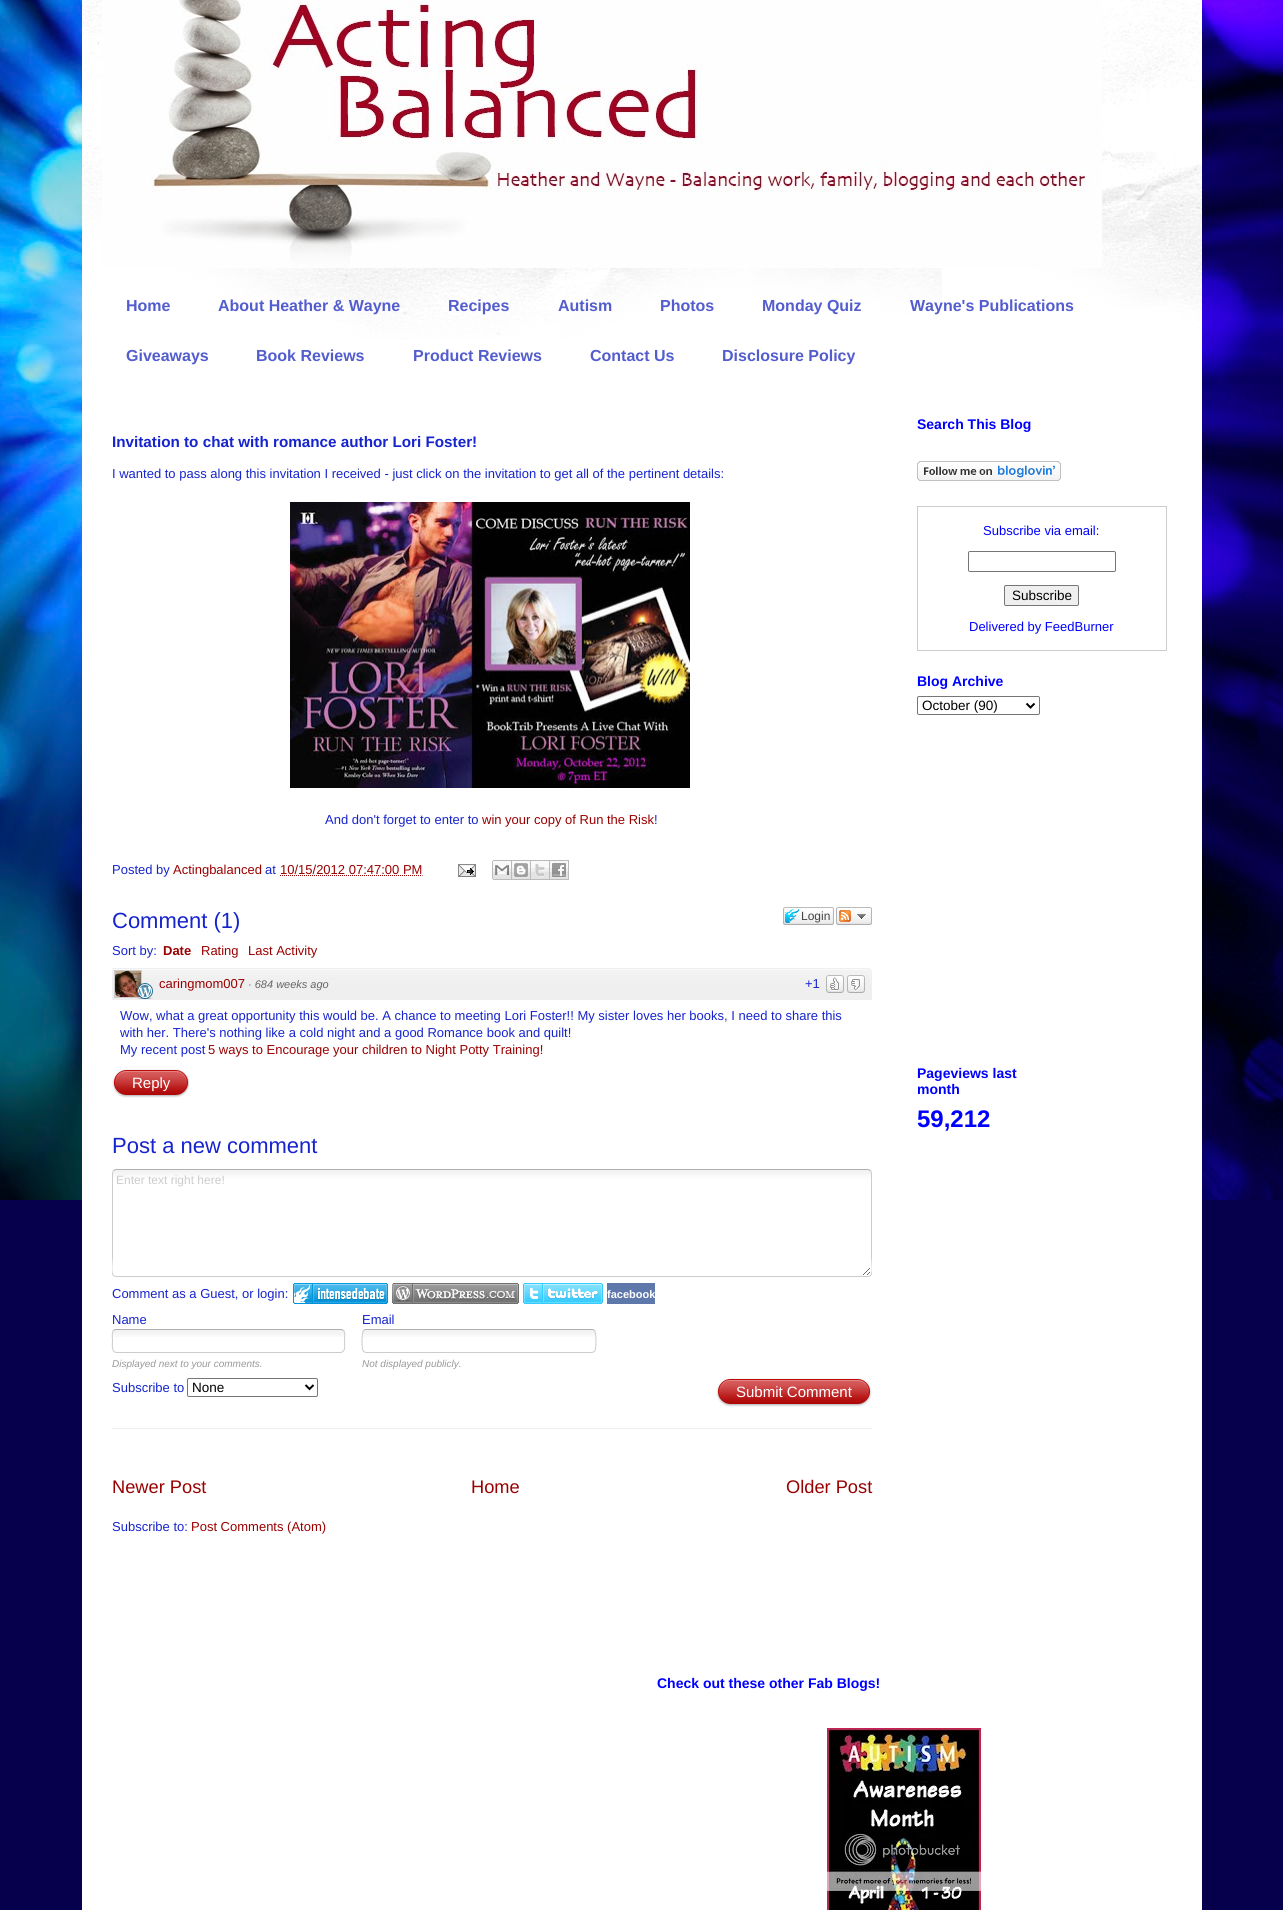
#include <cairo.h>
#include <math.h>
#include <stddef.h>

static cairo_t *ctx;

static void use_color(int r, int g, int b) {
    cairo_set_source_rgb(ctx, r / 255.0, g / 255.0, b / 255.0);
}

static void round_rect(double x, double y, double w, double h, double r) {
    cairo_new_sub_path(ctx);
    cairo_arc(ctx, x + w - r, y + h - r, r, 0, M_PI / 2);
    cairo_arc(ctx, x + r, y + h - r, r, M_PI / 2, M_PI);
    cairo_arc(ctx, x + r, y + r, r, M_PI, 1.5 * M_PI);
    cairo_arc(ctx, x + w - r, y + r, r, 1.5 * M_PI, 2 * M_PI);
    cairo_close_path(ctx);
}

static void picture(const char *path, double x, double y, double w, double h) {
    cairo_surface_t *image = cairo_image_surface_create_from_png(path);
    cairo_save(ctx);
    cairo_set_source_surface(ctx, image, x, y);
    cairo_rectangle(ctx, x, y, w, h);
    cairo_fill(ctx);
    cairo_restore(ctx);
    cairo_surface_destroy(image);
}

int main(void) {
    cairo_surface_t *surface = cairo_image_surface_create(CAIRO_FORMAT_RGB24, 1283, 1910);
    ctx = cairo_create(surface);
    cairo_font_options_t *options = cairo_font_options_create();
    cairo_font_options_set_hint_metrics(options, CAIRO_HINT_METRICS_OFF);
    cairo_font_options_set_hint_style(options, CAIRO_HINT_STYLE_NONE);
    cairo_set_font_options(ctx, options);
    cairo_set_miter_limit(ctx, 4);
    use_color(6, 0, 76);
    cairo_paint(ctx);
    picture("img1.png", 0, 0, 1283, 1200);
    use_color(255, 255, 255);
    cairo_rectangle(ctx, 82, 0, 1120, 1910);
    cairo_fill(ctx);
    picture("img2.png", 82, 0, 1120, 340);
    picture("img3.png", 102, 0, 1000, 268);
    cairo_select_font_face(ctx, "Liberation Sans", CAIRO_FONT_SLANT_NORMAL, CAIRO_FONT_WEIGHT_BOLD);
    cairo_set_font_size(ctx, 16);
    use_color(83, 93, 205);
    cairo_move_to(ctx, 126, 311);
    cairo_show_text(ctx, "Home");
    cairo_move_to(ctx, 218, 311);
    cairo_show_text(ctx, "About Heather & Wayne");
    cairo_move_to(ctx, 448, 311);
    cairo_show_text(ctx, "Recipes");
    cairo_move_to(ctx, 558, 311);
    cairo_show_text(ctx, "Autism");
    cairo_move_to(ctx, 660, 311);
    cairo_show_text(ctx, "Photos");
    cairo_move_to(ctx, 762, 311);
    cairo_show_text(ctx, "Monday Quiz");
    cairo_move_to(ctx, 910, 311);
    cairo_show_text(ctx, "Wayne's Publications");
    cairo_move_to(ctx, 126, 361);
    cairo_show_text(ctx, "Giveaways");
    cairo_move_to(ctx, 256, 361);
    cairo_show_text(ctx, "Book Reviews");
    cairo_move_to(ctx, 413, 361);
    cairo_show_text(ctx, "Product Reviews");
    cairo_move_to(ctx, 590, 361);
    cairo_show_text(ctx, "Contact Us");
    cairo_move_to(ctx, 722, 361);
    cairo_show_text(ctx, "Disclosure Policy");
    cairo_set_font_size(ctx, 15.25);
    use_color(22, 36, 205);
    cairo_move_to(ctx, 112, 447);
    cairo_show_text(ctx, "Invitation to chat with romance author Lori Foster!");
    cairo_select_font_face(ctx, "Liberation Sans", CAIRO_FONT_SLANT_NORMAL, CAIRO_FONT_WEIGHT_NORMAL);
    cairo_set_font_size(ctx, 13);
    cairo_move_to(ctx, 112, 478);
    cairo_show_text(ctx, "I wanted to pass along this invitation I received - just click on the invitation to get all of the pertinent details:");
    picture("img4.png", 290, 502, 400, 286);
    cairo_move_to(ctx, 325, 824);
    cairo_show_text(ctx, "And don't forget to enter to");
    use_color(153, 0, 0);
    cairo_move_to(ctx, 482, 824);
    cairo_show_text(ctx, "win your copy of Run the Risk");
    use_color(22, 36, 205);
    cairo_move_to(ctx, 654, 824);
    cairo_show_text(ctx, "!");
    cairo_move_to(ctx, 112, 874);
    cairo_show_text(ctx, "Posted by");
    use_color(153, 0, 0);
    cairo_move_to(ctx, 173, 874);
    cairo_show_text(ctx, "Actingbalanced");
    use_color(22, 36, 205);
    cairo_move_to(ctx, 265, 874);
    cairo_show_text(ctx, "at");
    use_color(153, 0, 0);
    cairo_move_to(ctx, 280, 874);
    cairo_show_text(ctx, "10/15/2012 07:47:00 PM");
    cairo_new_path(ctx);
    cairo_move_to(ctx, 280, 875.5);
    cairo_line_to(ctx, 422.5, 875.5);
    cairo_set_line_width(ctx, 1);
    cairo_set_dash(ctx, (double[]){1, 1}, 2, 0);
    cairo_stroke(ctx);
    picture("img5.png", 458, 864, 18, 13);
    picture("img6.png", 492, 860, 20, 20);
    picture("img7.png", 512, 860, 19, 20);
    picture("img8.png", 531, 860, 19, 20);
    picture("img9.png", 550, 860, 19, 20);
    cairo_set_font_size(ctx, 22);
    use_color(22, 36, 205);
    cairo_move_to(ctx, 112, 928);
    cairo_show_text(ctx, "Comment (1)");
    picture("img10.png", 783, 907, 48, 18);
    cairo_set_font_size(ctx, 12);
    use_color(68, 68, 68);
    cairo_move_to(ctx, 801, 920);
    cairo_show_text(ctx, "Login");
    picture("img11.png", 831, 907, 3, 18);
    picture("img12.png", 836, 907, 36, 18);
    cairo_set_font_size(ctx, 13);
    use_color(22, 36, 205);
    cairo_move_to(ctx, 112, 955);
    cairo_show_text(ctx, "Sort by:");
    cairo_select_font_face(ctx, "Liberation Sans", CAIRO_FONT_SLANT_NORMAL, CAIRO_FONT_WEIGHT_BOLD);
    use_color(153, 0, 0);
    cairo_move_to(ctx, 163, 955);
    cairo_show_text(ctx, "Date");
    cairo_select_font_face(ctx, "Liberation Sans", CAIRO_FONT_SLANT_NORMAL, CAIRO_FONT_WEIGHT_NORMAL);
    cairo_move_to(ctx, 201, 955);
    cairo_show_text(ctx, "Rating");
    cairo_move_to(ctx, 248, 955);
    cairo_show_text(ctx, "Last Activity");
    picture("img13.png", 112, 968, 760, 32);
    use_color(204, 204, 204);
    cairo_rectangle(ctx, 114, 970, 28, 28);
    cairo_fill(ctx);
    picture("img14.png", 115, 971, 26, 26);
    picture("img15.png", 137, 983, 16, 16);
    use_color(153, 0, 0);
    cairo_move_to(ctx, 159, 988);
    cairo_show_text(ctx, "caringmom007");
    cairo_select_font_face(ctx, "Liberation Sans", CAIRO_FONT_SLANT_ITALIC, CAIRO_FONT_WEIGHT_NORMAL);
    cairo_set_font_size(ctx, 11);
    use_color(102, 102, 102);
    cairo_move_to(ctx, 248, 988);
    cairo_show_text(ctx, "· 684 weeks ago");
    cairo_select_font_face(ctx, "Liberation Sans", CAIRO_FONT_SLANT_NORMAL, CAIRO_FONT_WEIGHT_NORMAL);
    cairo_set_font_size(ctx, 13);
    use_color(22, 36, 205);
    cairo_move_to(ctx, 805, 988);
    cairo_show_text(ctx, "+1");
    picture("img16.png", 826, 975, 18, 18);
    picture("img17.png", 847, 975, 18, 18);
    cairo_move_to(ctx, 120, 1020);
    cairo_show_text(ctx, "Wow, what a great opportunity this would be. A chance to meeting Lori Foster!! My sister loves her books, I need to share this");
    cairo_move_to(ctx, 120, 1037);
    cairo_show_text(ctx, "with her. There's nothing like a cold night and a good Romance book and quilt!");
    cairo_move_to(ctx, 120, 1054);
    cairo_show_text(ctx, "My recent post");
    use_color(153, 0, 0);
    cairo_move_to(ctx, 208, 1054);
    cairo_show_text(ctx, "5 ways to Encourage your children to Night Potty Training!");
    picture("img18.png", 112, 1069, 20, 29);
    picture("img19.png", 132, 1069, 58, 29);
    cairo_set_font_size(ctx, 15);
    use_color(255, 255, 255);
    cairo_move_to(ctx, 132, 1088);
    cairo_show_text(ctx, "Reply");
    cairo_set_font_size(ctx, 22);
    use_color(22, 36, 205);
    cairo_move_to(ctx, 112, 1153);
    cairo_show_text(ctx, "Post a new comment");
    picture("img20.png", 113, 1170, 759, 105);
    cairo_new_path(ctx);
    cairo_move_to(ctx, 113.5, 1170.5);
    cairo_line_to(ctx, 116, 1169.5);
    cairo_line_to(ctx, 868, 1169.5);
    cairo_line_to(ctx, 870.5, 1170.5);
    use_color(176, 176, 176);
    cairo_set_dash(ctx, NULL, 0, 0);
    cairo_stroke(ctx);
    cairo_save(ctx);
    cairo_rectangle(ctx, 112, 1169, 760, 112);
    cairo_clip(ctx);
    cairo_new_path(ctx);
    cairo_move_to(ctx, 870.5, 1170.5);
    cairo_line_to(ctx, 871.5, 1173);
    cairo_line_to(ctx, 871.5, 1256.5);
    cairo_curve_to(ctx, 871.5, 1263, 874.5, 1276.5, 868, 1276.5);
    cairo_line_to(ctx, 116, 1276.5);
    cairo_curve_to(ctx, 109.5, 1276.5, 112.5, 1263, 112.5, 1256.5);
    cairo_line_to(ctx, 112.5, 1173);
    cairo_line_to(ctx, 113.5, 1170.5);
    use_color(204, 204, 204);
    cairo_stroke(ctx);
    cairo_restore(ctx);
    cairo_set_font_size(ctx, 12);
    use_color(204, 204, 204);
    cairo_move_to(ctx, 116, 1184);
    cairo_show_text(ctx, "Enter text right here!");
    cairo_set_font_size(ctx, 13);
    use_color(22, 36, 205);
    cairo_move_to(ctx, 112, 1298);
    cairo_show_text(ctx, "Comment as a Guest, or login:");
    picture("img21.png", 293, 1283, 95, 21);
    picture("img22.png", 392, 1283, 127, 21);
    picture("img23.png", 523, 1283, 80, 21);
    use_color(95, 120, 171);
    cairo_rectangle(ctx, 607, 1283, 48, 21);
    cairo_fill(ctx);
    cairo_select_font_face(ctx, "Liberation Sans", CAIRO_FONT_SLANT_NORMAL, CAIRO_FONT_WEIGHT_BOLD);
    cairo_set_font_size(ctx, 11);
    use_color(255, 255, 255);
    cairo_move_to(ctx, 607, 1298);
    cairo_show_text(ctx, "facebook");
    cairo_select_font_face(ctx, "Liberation Sans", CAIRO_FONT_SLANT_NORMAL, CAIRO_FONT_WEIGHT_NORMAL);
    cairo_set_font_size(ctx, 13);
    use_color(22, 36, 205);
    cairo_move_to(ctx, 112, 1324);
    cairo_show_text(ctx, "Name");
    cairo_move_to(ctx, 362, 1324);
    cairo_show_text(ctx, "Email");
    picture("img24.png", 113, 1330, 232, 7);
    cairo_new_path(ctx);
    cairo_move_to(ctx, 113.5, 1330.5);
    cairo_curve_to(ctx, 114, 1330, 115, 1329.5, 116, 1329.5);
    cairo_line_to(ctx, 341, 1329.5);
    cairo_curve_to(ctx, 342, 1329.5, 343, 1330, 343.5, 1330.5);
    use_color(176, 176, 176);
    cairo_stroke(ctx);
    cairo_new_path(ctx);
    cairo_move_to(ctx, 343.5, 1330.5);
    cairo_curve_to(ctx, 345.5, 1332.5, 344.5, 1338.5, 344.5, 1341);
    cairo_curve_to(ctx, 344.5, 1343.5, 345.5, 1349.5, 343, 1351.5);
    cairo_line_to(ctx, 341, 1352.5);
    cairo_line_to(ctx, 116, 1352.5);
    cairo_line_to(ctx, 114, 1351.5);
    cairo_curve_to(ctx, 111.5, 1349.5, 112.5, 1343.5, 112.5, 1341);
    cairo_curve_to(ctx, 112.5, 1338.5, 111.5, 1332.5, 113.5, 1330.5);
    use_color(204, 204, 204);
    cairo_stroke(ctx);
    cairo_select_font_face(ctx, "Liberation Sans", CAIRO_FONT_SLANT_ITALIC, CAIRO_FONT_WEIGHT_NORMAL);
    cairo_set_font_size(ctx, 10);
    use_color(153, 153, 153);
    cairo_move_to(ctx, 112, 1367);
    cairo_show_text(ctx, "Displayed next to your comments.");
    picture("img25.png", 363, 1330, 233, 7);
    cairo_new_path(ctx);
    cairo_move_to(ctx, 363.5, 1330.5);
    cairo_curve_to(ctx, 364, 1330, 365, 1329.5, 366, 1329.5);
    cairo_line_to(ctx, 592, 1329.5);
    cairo_curve_to(ctx, 593, 1329.5, 594, 1330, 594.5, 1330.5);
    use_color(176, 176, 176);
    cairo_stroke(ctx);
    cairo_new_path(ctx);
    cairo_move_to(ctx, 594.5, 1330.5);
    cairo_curve_to(ctx, 596.5, 1332.5, 596.5, 1349.5, 594.5, 1351.5);
    cairo_line_to(ctx, 592, 1352.5);
    cairo_line_to(ctx, 366, 1352.5);
    cairo_line_to(ctx, 363.5, 1351.5);
    cairo_curve_to(ctx, 361.5, 1349.5, 361.5, 1332.5, 363.5, 1330.5);
    use_color(204, 204, 204);
    cairo_stroke(ctx);
    use_color(153, 153, 153);
    cairo_move_to(ctx, 362, 1367);
    cairo_show_text(ctx, "Not displayed publicly.");
    cairo_select_font_face(ctx, "Liberation Sans", CAIRO_FONT_SLANT_NORMAL, CAIRO_FONT_WEIGHT_NORMAL);
    cairo_set_font_size(ctx, 13);
    use_color(22, 36, 205);
    cairo_move_to(ctx, 112, 1392);
    cairo_show_text(ctx, "Subscribe to");
    round_rect(187.5, 1378.5, 130, 18, 1.5);
    use_color(118, 118, 118);
    cairo_stroke(ctx);
    cairo_new_path(ctx);
    cairo_move_to(ctx, 305.5, 1385);
    cairo_line_to(ctx, 309.5, 1389);
    cairo_line_to(ctx, 313.5, 1385);
    use_color(0, 0, 0);
    cairo_set_line_width(ctx, 2);
    cairo_stroke(ctx);
    cairo_set_font_size(ctx, 13.5);
    cairo_move_to(ctx, 192, 1392);
    cairo_show_text(ctx, "None");
    picture("img18.png", 716, 1378, 20, 29);
    picture("img26.png", 736, 1378, 136, 29);
    cairo_set_font_size(ctx, 15);
    use_color(255, 255, 255);
    cairo_move_to(ctx, 736, 1397);
    cairo_show_text(ctx, "Submit Comment");
    use_color(238, 238, 238);
    cairo_rectangle(ctx, 112, 1428, 760, 1);
    cairo_fill(ctx);
    cairo_set_font_size(ctx, 18.25);
    use_color(153, 0, 0);
    cairo_move_to(ctx, 112, 1493);
    cairo_show_text(ctx, "Newer Post");
    cairo_move_to(ctx, 471, 1493);
    cairo_show_text(ctx, "Home");
    cairo_move_to(ctx, 786, 1493);
    cairo_show_text(ctx, "Older Post");
    cairo_set_font_size(ctx, 13);
    use_color(22, 36, 205);
    cairo_move_to(ctx, 112, 1531);
    cairo_show_text(ctx, "Subscribe to:");
    use_color(153, 0, 0);
    cairo_move_to(ctx, 191, 1531);
    cairo_show_text(ctx, "Post Comments (Atom)");
    cairo_select_font_face(ctx, "Liberation Sans", CAIRO_FONT_SLANT_NORMAL, CAIRO_FONT_WEIGHT_BOLD);
    cairo_set_font_size(ctx, 14);
    use_color(0, 0, 255);
    cairo_move_to(ctx, 917, 429);
    cairo_show_text(ctx, "Search This Blog");
    picture("img27.png", 917, 461, 144, 20);
    cairo_rectangle(ctx, 917.5, 506.5, 249, 144);
    use_color(204, 204, 204);
    cairo_set_line_width(ctx, 1);
    cairo_stroke(ctx);
    cairo_select_font_face(ctx, "Liberation Sans", CAIRO_FONT_SLANT_NORMAL, CAIRO_FONT_WEIGHT_NORMAL);
    cairo_set_font_size(ctx, 13);
    use_color(0, 0, 255);
    cairo_move_to(ctx, 983, 535);
    cairo_show_text(ctx, "Subscribe via email:");
    round_rect(968.5, 551.5, 147, 20, 1.5);
    use_color(118, 118, 118);
    cairo_stroke(ctx);
    use_color(239, 239, 239);
    round_rect(1004.5, 585.5, 74, 20, 1.5);
    cairo_fill_preserve(ctx);
    use_color(118, 118, 118);
    cairo_stroke(ctx);
    cairo_set_font_size(ctx, 13.5);
    use_color(0, 0, 0);
    cairo_move_to(ctx, 1012, 600);
    cairo_show_text(ctx, "Subscribe");
    cairo_set_font_size(ctx, 13);
    use_color(0, 0, 255);
    cairo_move_to(ctx, 969, 631);
    cairo_show_text(ctx, "Delivered by FeedBurner");
    cairo_select_font_face(ctx, "Liberation Sans", CAIRO_FONT_SLANT_NORMAL, CAIRO_FONT_WEIGHT_BOLD);
    cairo_set_font_size(ctx, 14);
    cairo_move_to(ctx, 917, 686);
    cairo_show_text(ctx, "Blog Archive");
    round_rect(917.5, 696.5, 122, 18, 1.5);
    use_color(118, 118, 118);
    cairo_stroke(ctx);
    cairo_new_path(ctx);
    cairo_move_to(ctx, 1026.5, 703.5);
    cairo_line_to(ctx, 1030.5, 707.5);
    cairo_line_to(ctx, 1034.5, 703.5);
    use_color(0, 0, 0);
    cairo_set_line_width(ctx, 2);
    cairo_stroke(ctx);
    cairo_select_font_face(ctx, "Liberation Sans", CAIRO_FONT_SLANT_NORMAL, CAIRO_FONT_WEIGHT_NORMAL);
    cairo_set_font_size(ctx, 13.5);
    cairo_move_to(ctx, 922, 710);
    cairo_show_text(ctx, "October (90)");
    cairo_select_font_face(ctx, "Liberation Sans", CAIRO_FONT_SLANT_NORMAL, CAIRO_FONT_WEIGHT_BOLD);
    cairo_set_font_size(ctx, 14);
    use_color(0, 0, 255);
    cairo_move_to(ctx, 917, 1078);
    cairo_show_text(ctx, "Pageviews last");
    cairo_move_to(ctx, 917, 1094);
    cairo_show_text(ctx, "month");
    cairo_set_font_size(ctx, 24);
    cairo_move_to(ctx, 917, 1127);
    cairo_show_text(ctx, "59,212");
    cairo_set_font_size(ctx, 14);
    cairo_move_to(ctx, 657, 1688);
    cairo_show_text(ctx, "Check out these other Fab Blogs!");
    picture("img28.png", 827, 1728, 154, 182);
    cairo_surface_write_to_png(surface, "result.png");
    cairo_font_options_destroy(options);
    cairo_destroy(ctx);
    cairo_surface_destroy(surface);
    return 0;
}
